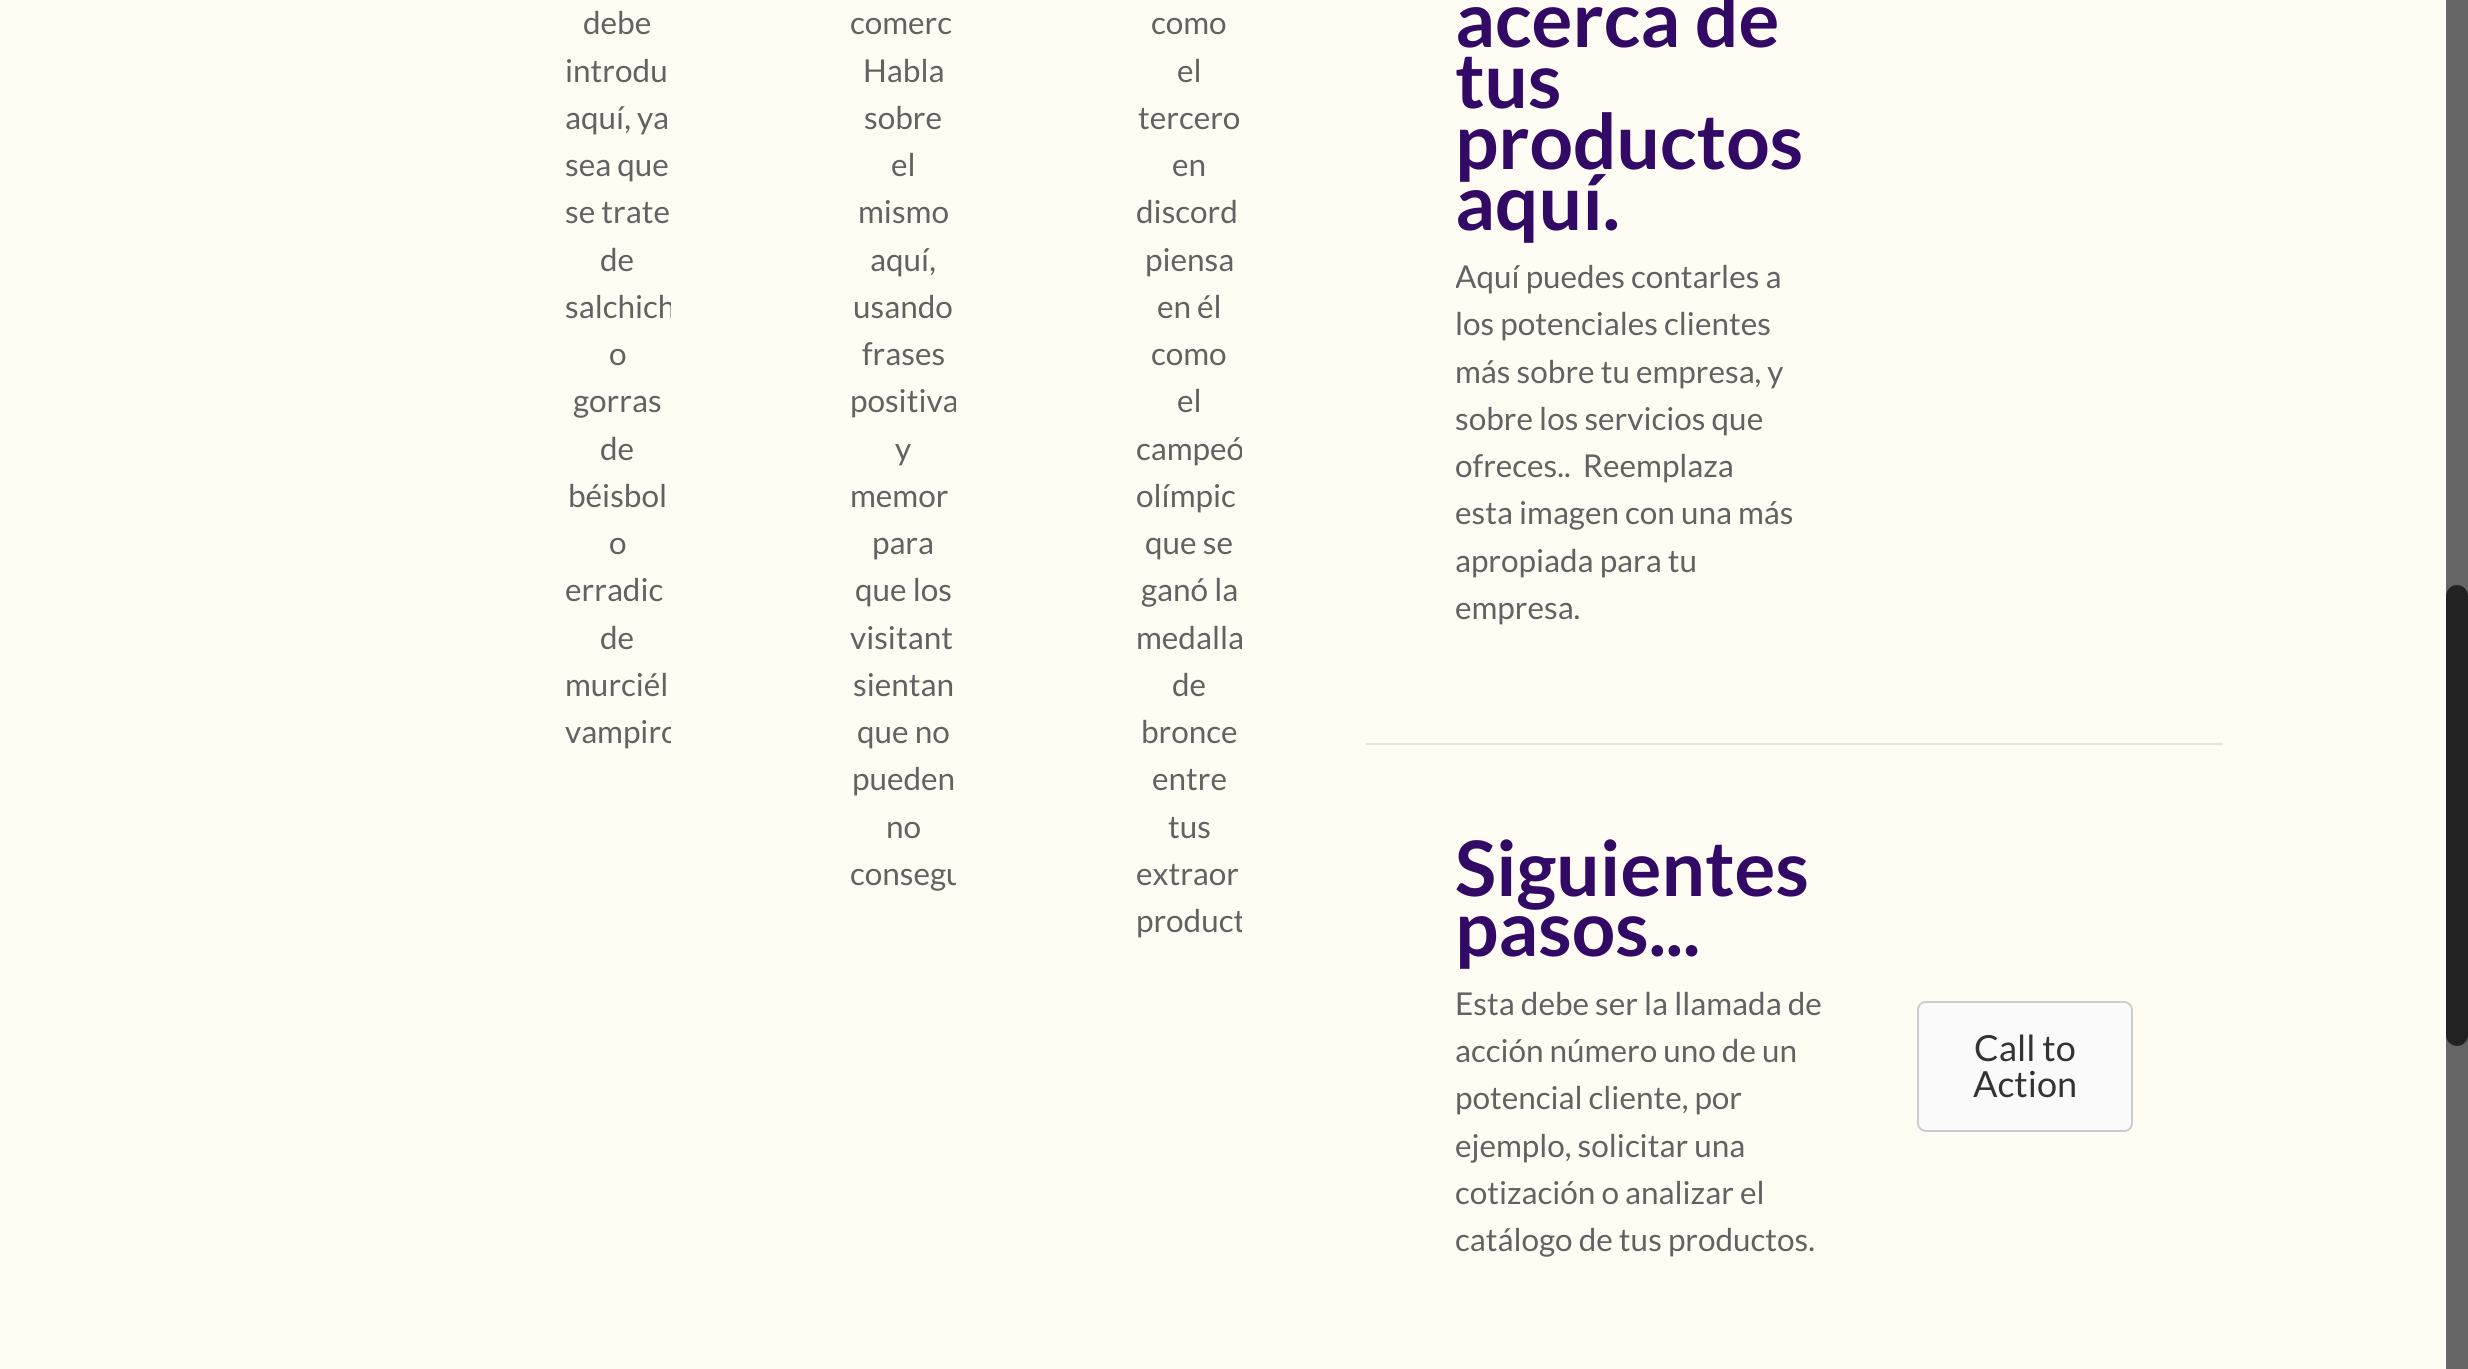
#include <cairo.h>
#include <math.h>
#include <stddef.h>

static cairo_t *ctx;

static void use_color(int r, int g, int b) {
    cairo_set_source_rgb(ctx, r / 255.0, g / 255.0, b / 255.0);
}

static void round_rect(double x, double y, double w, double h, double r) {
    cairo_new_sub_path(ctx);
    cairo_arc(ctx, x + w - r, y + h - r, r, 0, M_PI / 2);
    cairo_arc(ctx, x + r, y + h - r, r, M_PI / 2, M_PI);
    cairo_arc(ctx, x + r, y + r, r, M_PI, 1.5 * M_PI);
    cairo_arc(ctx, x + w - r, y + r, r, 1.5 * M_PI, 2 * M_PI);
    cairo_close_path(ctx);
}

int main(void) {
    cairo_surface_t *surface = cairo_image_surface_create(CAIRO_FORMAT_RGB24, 2468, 1369);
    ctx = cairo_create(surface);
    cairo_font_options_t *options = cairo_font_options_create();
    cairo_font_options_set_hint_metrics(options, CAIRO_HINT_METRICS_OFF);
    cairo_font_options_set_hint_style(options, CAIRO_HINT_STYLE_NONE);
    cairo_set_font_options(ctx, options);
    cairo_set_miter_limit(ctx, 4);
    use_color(255, 253, 243);
    cairo_paint(ctx);
    cairo_select_font_face(ctx, "Lato", CAIRO_FONT_SLANT_NORMAL, CAIRO_FONT_WEIGHT_NORMAL);
    cairo_set_font_size(ctx, 31.5);
    use_color(98, 98, 98);
    cairo_move_to(ctx, 583, 34);
    cairo_show_text(ctx, "debe");
    cairo_move_to(ctx, 565, 82);
    cairo_show_text(ctx, "introdu");
    cairo_move_to(ctx, 565, 129);
    cairo_show_text(ctx, "aquí, ya");
    cairo_move_to(ctx, 565, 176);
    cairo_show_text(ctx, "sea que");
    cairo_move_to(ctx, 565, 223);
    cairo_show_text(ctx, "se trate");
    cairo_move_to(ctx, 600, 271);
    cairo_show_text(ctx, "de");
    cairo_save(ctx);
    cairo_rectangle(ctx, 565, 0, 106, 776);
    cairo_clip(ctx);
    cairo_move_to(ctx, 565, 318);
    cairo_show_text(ctx, "salchich");
    cairo_restore(ctx);
    cairo_move_to(ctx, 609, 365);
    cairo_show_text(ctx, "o");
    cairo_move_to(ctx, 573, 412);
    cairo_show_text(ctx, "gorras");
    cairo_move_to(ctx, 600, 460);
    cairo_show_text(ctx, "de");
    cairo_move_to(ctx, 568, 507);
    cairo_show_text(ctx, "béisbol");
    cairo_move_to(ctx, 609, 554);
    cairo_show_text(ctx, "o");
    cairo_move_to(ctx, 565, 601);
    cairo_show_text(ctx, "erradic");
    cairo_move_to(ctx, 600, 649);
    cairo_show_text(ctx, "de");
    cairo_move_to(ctx, 565, 696);
    cairo_show_text(ctx, "murciél");
    cairo_save(ctx);
    cairo_rectangle(ctx, 565, 0, 106, 776);
    cairo_clip(ctx);
    cairo_move_to(ctx, 565, 743);
    cairo_show_text(ctx, "vampiro");
    cairo_restore(ctx);
    cairo_move_to(ctx, 850, 34);
    cairo_show_text(ctx, "comerc");
    cairo_move_to(ctx, 863, 82);
    cairo_show_text(ctx, "Habla");
    cairo_move_to(ctx, 864, 129);
    cairo_show_text(ctx, "sobre");
    cairo_move_to(ctx, 891, 176);
    cairo_show_text(ctx, "el");
    cairo_move_to(ctx, 858, 223);
    cairo_show_text(ctx, "mismo");
    cairo_move_to(ctx, 870, 271);
    cairo_show_text(ctx, "aquí,");
    cairo_move_to(ctx, 853, 318);
    cairo_show_text(ctx, "usando");
    cairo_move_to(ctx, 862, 365);
    cairo_show_text(ctx, "frases");
    cairo_save(ctx);
    cairo_rectangle(ctx, 851, 0, 105, 918);
    cairo_clip(ctx);
    cairo_move_to(ctx, 850, 412);
    cairo_show_text(ctx, "positiva");
    cairo_restore(ctx);
    cairo_move_to(ctx, 895, 460);
    cairo_show_text(ctx, "y");
    cairo_move_to(ctx, 850, 507);
    cairo_show_text(ctx, "memor");
    cairo_move_to(ctx, 872, 554);
    cairo_show_text(ctx, "para");
    cairo_move_to(ctx, 855, 601);
    cairo_show_text(ctx, "que los");
    cairo_move_to(ctx, 850, 649);
    cairo_show_text(ctx, "visitant");
    cairo_move_to(ctx, 853, 696);
    cairo_show_text(ctx, "sientan");
    cairo_move_to(ctx, 857, 743);
    cairo_show_text(ctx, "que no");
    cairo_move_to(ctx, 852, 790);
    cairo_show_text(ctx, "pueden");
    cairo_move_to(ctx, 886, 838);
    cairo_show_text(ctx, "no");
    cairo_save(ctx);
    cairo_rectangle(ctx, 851, 0, 105, 918);
    cairo_clip(ctx);
    cairo_move_to(ctx, 850, 885);
    cairo_show_text(ctx, "consegu");
    cairo_restore(ctx);
    cairo_move_to(ctx, 1151, 34);
    cairo_show_text(ctx, "como");
    cairo_move_to(ctx, 1177, 82);
    cairo_show_text(ctx, "el");
    cairo_move_to(ctx, 1138, 129);
    cairo_show_text(ctx, "tercero");
    cairo_move_to(ctx, 1172, 176);
    cairo_show_text(ctx, "en");
    cairo_move_to(ctx, 1136, 223);
    cairo_show_text(ctx, "discord");
    cairo_move_to(ctx, 1145, 271);
    cairo_show_text(ctx, "piensa");
    cairo_move_to(ctx, 1157, 318);
    cairo_show_text(ctx, "en él");
    cairo_move_to(ctx, 1151, 365);
    cairo_show_text(ctx, "como");
    cairo_move_to(ctx, 1177, 412);
    cairo_show_text(ctx, "el");
    cairo_save(ctx);
    cairo_rectangle(ctx, 1136, 0, 106, 965);
    cairo_clip(ctx);
    cairo_move_to(ctx, 1136, 460);
    cairo_show_text(ctx, "campeó");
    cairo_restore(ctx);
    cairo_move_to(ctx, 1136, 507);
    cairo_show_text(ctx, "olímpic");
    cairo_move_to(ctx, 1145, 554);
    cairo_show_text(ctx, "que se");
    cairo_move_to(ctx, 1141, 601);
    cairo_show_text(ctx, "ganó la");
    cairo_save(ctx);
    cairo_rectangle(ctx, 1136, 0, 106, 965);
    cairo_clip(ctx);
    cairo_move_to(ctx, 1136, 649);
    cairo_show_text(ctx, "medalla");
    cairo_restore(ctx);
    cairo_move_to(ctx, 1172, 696);
    cairo_show_text(ctx, "de");
    cairo_move_to(ctx, 1141, 743);
    cairo_show_text(ctx, "bronce");
    cairo_move_to(ctx, 1152, 790);
    cairo_show_text(ctx, "entre");
    cairo_move_to(ctx, 1168, 838);
    cairo_show_text(ctx, "tus");
    cairo_move_to(ctx, 1136, 885);
    cairo_show_text(ctx, "extraor");
    cairo_save(ctx);
    cairo_rectangle(ctx, 1136, 0, 106, 965);
    cairo_clip(ctx);
    cairo_move_to(ctx, 1136, 932);
    cairo_show_text(ctx, "product");
    cairo_restore(ctx);
    cairo_select_font_face(ctx, "Lato", CAIRO_FONT_SLANT_NORMAL, CAIRO_FONT_WEIGHT_BOLD);
    cairo_set_font_size(ctx, 76.5);
    use_color(50, 9, 101);
    cairo_move_to(ctx, 1455, 47);
    cairo_show_text(ctx, "acerca de");
    cairo_move_to(ctx, 1455, 108);
    cairo_show_text(ctx, "tus");
    cairo_move_to(ctx, 1455, 169);
    cairo_show_text(ctx, "productos");
    cairo_move_to(ctx, 1455, 230);
    cairo_show_text(ctx, "aquí.");
    cairo_save(ctx);
    cairo_rectangle(ctx, 1456, 0, 677, 653);
    cairo_clip(ctx);
    cairo_select_font_face(ctx, "Lato", CAIRO_FONT_SLANT_NORMAL, CAIRO_FONT_WEIGHT_NORMAL);
    cairo_set_font_size(ctx, 31.5);
    use_color(98, 98, 98);
    cairo_move_to(ctx, 1455, 288);
    cairo_show_text(ctx, "Aquí puedes contarles a");
    cairo_restore(ctx);
    cairo_select_font_face(ctx, "Lato", CAIRO_FONT_SLANT_NORMAL, CAIRO_FONT_WEIGHT_NORMAL);
    cairo_set_font_size(ctx, 31.5);
    use_color(98, 98, 98);
    cairo_move_to(ctx, 1455, 335);
    cairo_show_text(ctx, "los potenciales clientes");
    cairo_move_to(ctx, 1455, 383);
    cairo_show_text(ctx, "más sobre tu empresa, y");
    cairo_move_to(ctx, 1455, 430);
    cairo_show_text(ctx, "sobre los servicios que");
    cairo_save(ctx);
    cairo_rectangle(ctx, 1456, 0, 677, 653);
    cairo_clip(ctx);
    cairo_move_to(ctx, 1455, 477);
    cairo_show_text(ctx, "ofreces..  Reemplaza");
    cairo_move_to(ctx, 1455, 524);
    cairo_show_text(ctx, "esta imagen con una más");
    cairo_restore(ctx);
    cairo_move_to(ctx, 1455, 572);
    cairo_show_text(ctx, "apropiada para tu");
    cairo_save(ctx);
    cairo_rectangle(ctx, 1456, 0, 677, 653);
    cairo_clip(ctx);
    cairo_move_to(ctx, 1455, 619);
    cairo_show_text(ctx, "empresa.");
    cairo_restore(ctx);
    use_color(230, 228, 219);
    cairo_rectangle(ctx, 1366, 743, 857, 2);
    cairo_fill(ctx);
    cairo_select_font_face(ctx, "Lato", CAIRO_FONT_SLANT_NORMAL, CAIRO_FONT_WEIGHT_BOLD);
    cairo_set_font_size(ctx, 76.5);
    use_color(50, 9, 101);
    cairo_move_to(ctx, 1455, 896);
    cairo_show_text(ctx, "Siguientes");
    cairo_move_to(ctx, 1455, 956);
    cairo_show_text(ctx, "pasos...");
    cairo_select_font_face(ctx, "Lato", CAIRO_FONT_SLANT_NORMAL, CAIRO_FONT_WEIGHT_NORMAL);
    cairo_set_font_size(ctx, 31.5);
    use_color(98, 98, 98);
    cairo_move_to(ctx, 1455, 1015);
    cairo_show_text(ctx, "Esta debe ser la llamada de");
    cairo_move_to(ctx, 1455, 1062);
    cairo_show_text(ctx, "acción número uno de un");
    cairo_move_to(ctx, 1455, 1109);
    cairo_show_text(ctx, "potencial cliente, por");
    cairo_move_to(ctx, 1455, 1157);
    cairo_show_text(ctx, "ejemplo, solicitar una");
    cairo_move_to(ctx, 1455, 1204);
    cairo_show_text(ctx, "cotización o analizar el");
    cairo_move_to(ctx, 1455, 1251);
    cairo_show_text(ctx, "catálogo de tus productos.");
    use_color(250, 250, 250);
    round_rect(1918, 1002, 214, 129, 8);
    cairo_fill_preserve(ctx);
    use_color(204, 204, 204);
    cairo_stroke(ctx);
    cairo_set_font_size(ctx, 36);
    use_color(51, 51, 51);
    cairo_move_to(ctx, 1974, 1061);
    cairo_show_text(ctx, "Call to");
    cairo_move_to(ctx, 1973, 1097);
    cairo_show_text(ctx, "Action");
    use_color(102, 102, 102);
    cairo_rectangle(ctx, 2446, 0, 22, 1369);
    cairo_fill(ctx);
    use_color(34, 34, 34);
    round_rect(2446, 585, 22, 461, 11);
    cairo_fill(ctx);
    cairo_surface_write_to_png(surface, "result.png");
    cairo_font_options_destroy(options);
    cairo_destroy(ctx);
    cairo_surface_destroy(surface);
    return 0;
}
